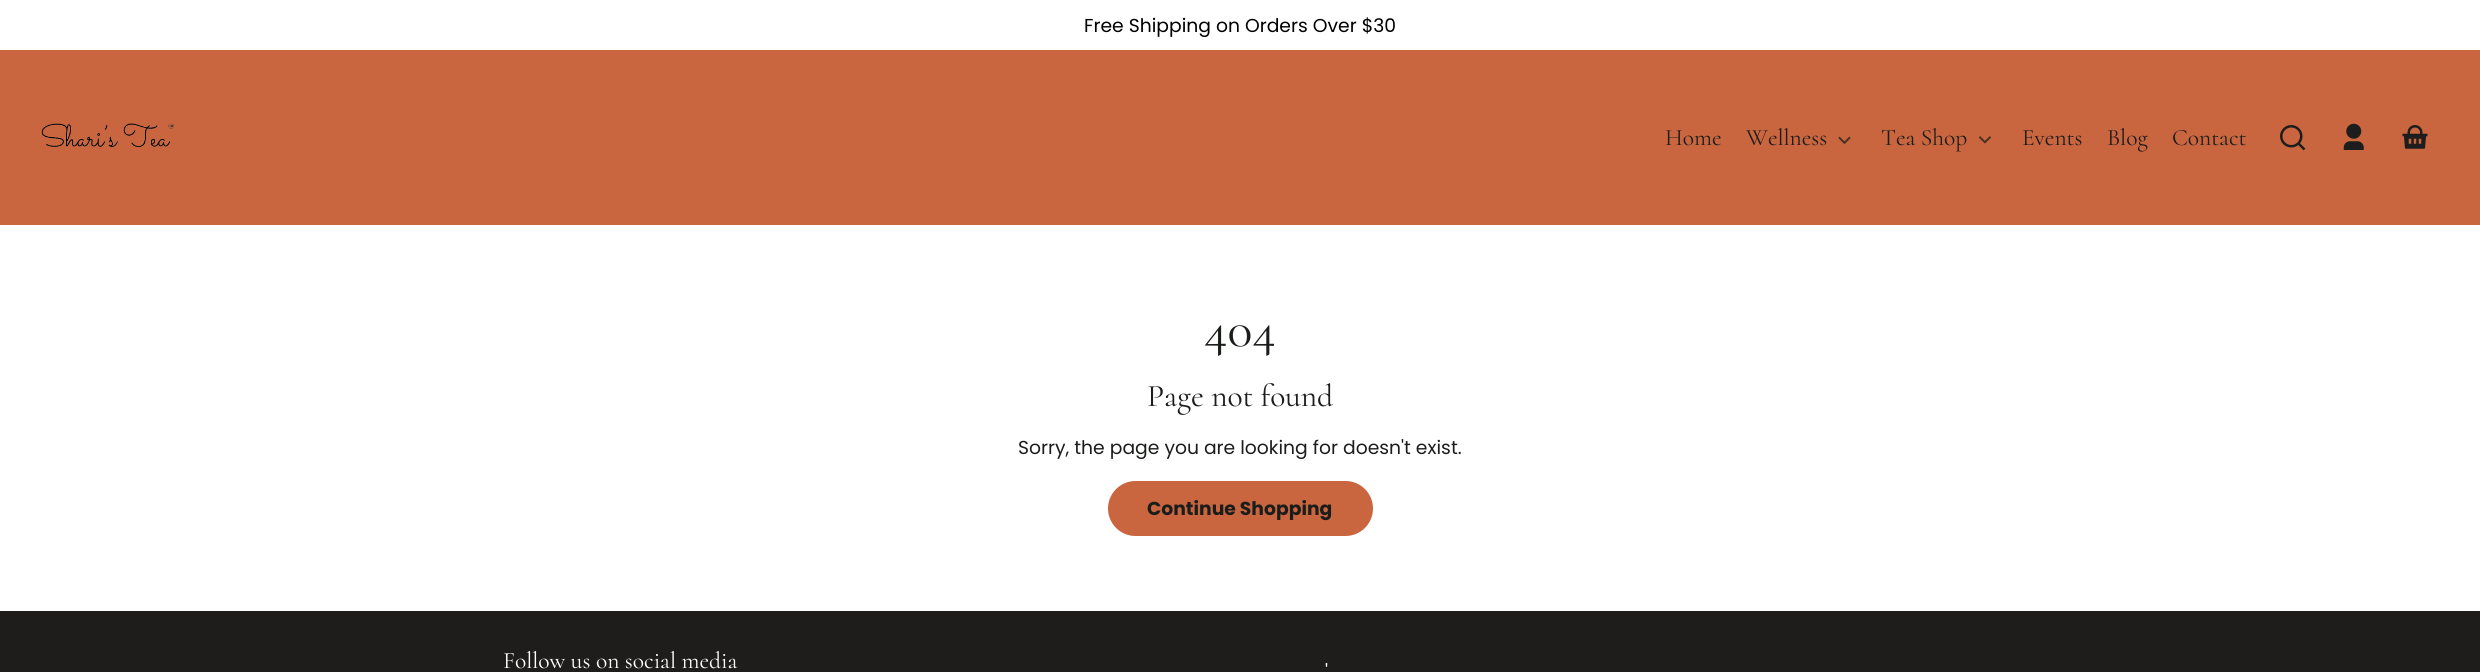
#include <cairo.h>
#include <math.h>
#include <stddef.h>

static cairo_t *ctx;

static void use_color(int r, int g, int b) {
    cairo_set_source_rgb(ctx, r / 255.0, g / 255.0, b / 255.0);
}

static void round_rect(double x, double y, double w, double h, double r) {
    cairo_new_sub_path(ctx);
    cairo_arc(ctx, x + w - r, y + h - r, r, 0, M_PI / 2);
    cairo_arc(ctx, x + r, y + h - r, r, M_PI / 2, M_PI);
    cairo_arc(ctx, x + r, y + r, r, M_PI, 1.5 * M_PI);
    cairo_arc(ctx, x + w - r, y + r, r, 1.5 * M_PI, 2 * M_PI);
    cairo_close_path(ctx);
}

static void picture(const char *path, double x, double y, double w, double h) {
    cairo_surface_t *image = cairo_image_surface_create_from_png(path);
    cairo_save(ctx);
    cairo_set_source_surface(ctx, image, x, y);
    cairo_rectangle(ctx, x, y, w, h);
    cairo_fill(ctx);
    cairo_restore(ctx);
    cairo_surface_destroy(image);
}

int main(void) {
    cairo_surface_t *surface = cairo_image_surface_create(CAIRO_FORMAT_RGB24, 2480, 672);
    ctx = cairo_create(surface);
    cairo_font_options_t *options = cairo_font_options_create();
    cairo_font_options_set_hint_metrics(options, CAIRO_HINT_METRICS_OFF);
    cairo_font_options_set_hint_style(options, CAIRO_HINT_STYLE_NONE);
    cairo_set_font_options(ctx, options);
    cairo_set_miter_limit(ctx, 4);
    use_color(255, 255, 255);
    cairo_paint(ctx);
    cairo_select_font_face(ctx, "Poppins", CAIRO_FONT_SLANT_NORMAL, CAIRO_FONT_WEIGHT_NORMAL);
    cairo_set_font_size(ctx, 18.75);
    use_color(0, 0, 0);
    cairo_move_to(ctx, 1084, 32);
    cairo_show_text(ctx, "Free Shipping on Orders Over $30");
    use_color(202, 102, 63);
    cairo_rectangle(ctx, 0, 50, 2480, 175);
    cairo_fill(ctx);
    picture("img1.png", 41, 123, 133, 24);
    cairo_select_font_face(ctx, "Cormorant", CAIRO_FONT_SLANT_NORMAL, CAIRO_FONT_WEIGHT_NORMAL);
    cairo_set_font_size(ctx, 23.5);
    use_color(27, 29, 27);
    cairo_move_to(ctx, 1665, 145);
    cairo_show_text(ctx, "Home");
    cairo_move_to(ctx, 1746, 145);
    cairo_show_text(ctx, "Wellness");
    picture("img2.png", 1838, 136, 13, 9);
    cairo_move_to(ctx, 1881, 145);
    cairo_show_text(ctx, "Tea Shop");
    picture("img3.png", 1978, 136, 14, 8);
    cairo_move_to(ctx, 2022, 145);
    cairo_show_text(ctx, "Events");
    cairo_move_to(ctx, 2107, 145);
    cairo_show_text(ctx, "Blog");
    cairo_move_to(ctx, 2172, 145);
    cairo_show_text(ctx, "Contact");
    picture("img4.png", 2280, 125, 26, 26);
    picture("img5.png", 2343, 123, 21, 27);
    picture("img6.png", 2402, 125, 26, 24);
    cairo_set_font_size(ctx, 52);
    cairo_move_to(ctx, 1204, 346);
    cairo_show_text(ctx, "404");
    cairo_set_font_size(ctx, 31.5);
    cairo_move_to(ctx, 1147, 406);
    cairo_show_text(ctx, "Page not found");
    cairo_select_font_face(ctx, "Poppins", CAIRO_FONT_SLANT_NORMAL, CAIRO_FONT_WEIGHT_NORMAL);
    cairo_set_font_size(ctx, 18.75);
    cairo_move_to(ctx, 1018, 454);
    cairo_show_text(ctx, "Sorry, the page you are looking for doesn't exist.");
    use_color(202, 102, 63);
    round_rect(1108, 481, 265, 55, 27.5);
    cairo_fill(ctx);
    cairo_select_font_face(ctx, "Poppins", CAIRO_FONT_SLANT_NORMAL, CAIRO_FONT_WEIGHT_BOLD);
    use_color(27, 29, 27);
    cairo_move_to(ctx, 1147, 515);
    cairo_show_text(ctx, "Continue Shopping");
    use_color(31, 28, 28);
    cairo_rectangle(ctx, 0, 611, 2480, 61);
    cairo_fill(ctx);
    cairo_select_font_face(ctx, "Cormorant", CAIRO_FONT_SLANT_NORMAL, CAIRO_FONT_WEIGHT_NORMAL);
    cairo_set_font_size(ctx, 23.5);
    use_color(255, 255, 255);
    cairo_move_to(ctx, 503, 668);
    cairo_show_text(ctx, "Follow us on social media");
    cairo_select_font_face(ctx, "Poppins", CAIRO_FONT_SLANT_NORMAL, CAIRO_FONT_WEIGHT_NORMAL);
    cairo_set_font_size(ctx, 18.75);
    cairo_move_to(ctx, 1325, 678);
    cairo_show_text(ctx, "'");
    cairo_surface_write_to_png(surface, "result.png");
    cairo_font_options_destroy(options);
    cairo_destroy(ctx);
    cairo_surface_destroy(surface);
    return 0;
}
